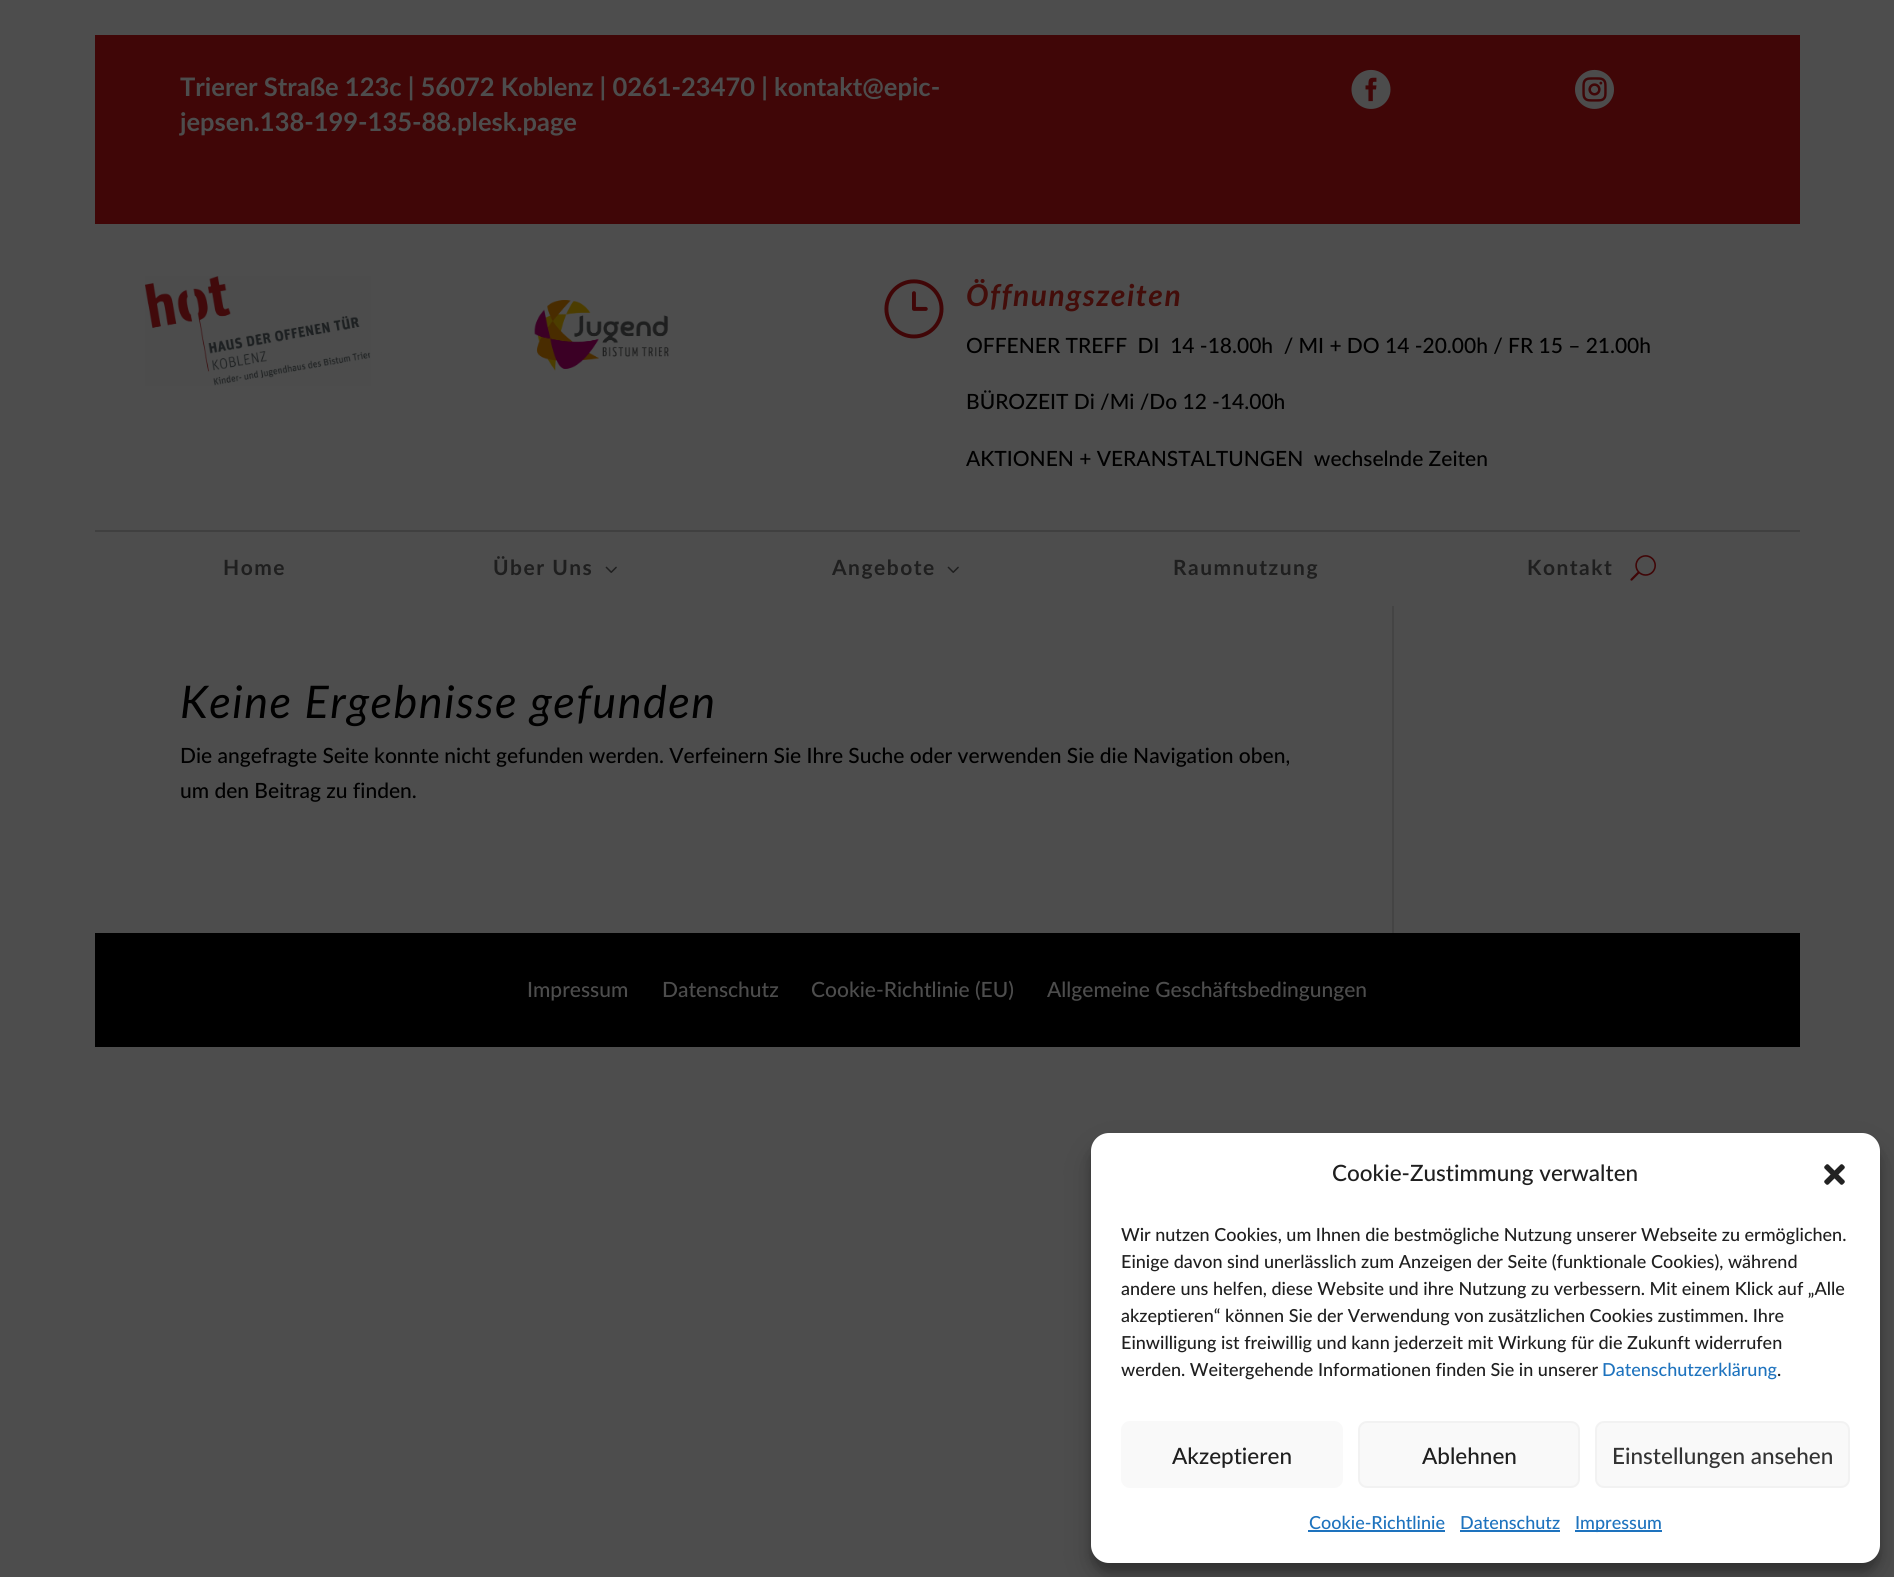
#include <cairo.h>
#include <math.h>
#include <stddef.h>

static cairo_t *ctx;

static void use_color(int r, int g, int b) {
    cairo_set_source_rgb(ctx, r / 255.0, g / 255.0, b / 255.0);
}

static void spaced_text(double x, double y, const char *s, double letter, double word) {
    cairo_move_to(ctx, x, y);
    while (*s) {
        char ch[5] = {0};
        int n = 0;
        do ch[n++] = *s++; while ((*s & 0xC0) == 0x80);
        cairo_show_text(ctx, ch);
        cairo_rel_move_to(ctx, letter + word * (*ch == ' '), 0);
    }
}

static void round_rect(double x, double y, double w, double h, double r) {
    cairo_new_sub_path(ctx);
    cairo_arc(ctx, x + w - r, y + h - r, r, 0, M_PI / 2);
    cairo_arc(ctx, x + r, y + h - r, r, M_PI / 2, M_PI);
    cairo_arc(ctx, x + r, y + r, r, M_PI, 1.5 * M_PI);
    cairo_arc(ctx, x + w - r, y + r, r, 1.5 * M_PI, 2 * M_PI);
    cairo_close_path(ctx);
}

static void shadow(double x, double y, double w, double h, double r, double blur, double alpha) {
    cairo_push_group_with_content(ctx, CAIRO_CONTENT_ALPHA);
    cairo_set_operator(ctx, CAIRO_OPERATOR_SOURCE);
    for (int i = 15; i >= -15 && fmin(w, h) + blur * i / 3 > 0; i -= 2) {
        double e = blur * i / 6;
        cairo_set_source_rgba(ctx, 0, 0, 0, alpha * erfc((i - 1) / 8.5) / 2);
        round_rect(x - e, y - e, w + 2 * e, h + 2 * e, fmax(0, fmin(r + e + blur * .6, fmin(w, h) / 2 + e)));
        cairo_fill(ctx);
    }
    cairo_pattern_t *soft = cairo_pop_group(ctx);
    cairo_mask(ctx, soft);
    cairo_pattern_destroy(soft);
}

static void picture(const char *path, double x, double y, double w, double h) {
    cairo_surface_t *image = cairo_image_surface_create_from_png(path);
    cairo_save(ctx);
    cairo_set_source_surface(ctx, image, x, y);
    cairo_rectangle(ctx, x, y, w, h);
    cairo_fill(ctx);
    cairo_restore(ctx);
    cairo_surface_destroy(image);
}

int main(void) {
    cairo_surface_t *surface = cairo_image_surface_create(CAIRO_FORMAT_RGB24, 1894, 1577);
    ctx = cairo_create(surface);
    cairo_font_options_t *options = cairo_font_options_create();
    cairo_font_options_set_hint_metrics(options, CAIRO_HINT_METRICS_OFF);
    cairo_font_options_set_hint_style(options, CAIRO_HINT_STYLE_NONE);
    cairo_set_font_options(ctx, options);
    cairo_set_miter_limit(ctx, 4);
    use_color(77, 77, 77);
    cairo_paint(ctx);
    use_color(64, 6, 7);
    cairo_rectangle(ctx, 95, 35, 1705, 189);
    cairo_fill(ctx);
    cairo_select_font_face(ctx, "Lato", CAIRO_FONT_SLANT_NORMAL, CAIRO_FONT_WEIGHT_BOLD);
    cairo_set_font_size(ctx, 25.5);
    use_color(77, 77, 77);
    cairo_move_to(ctx, 180, 96);
    cairo_show_text(ctx, "Trierer Straße 123c | 56072 Koblenz | 0261-23470 | kontakt@epic-");
    cairo_move_to(ctx, 180, 131);
    cairo_show_text(ctx, "jepsen.138-199-135-88.plesk.page");
    picture("img1.png", 1351, 69, 40, 40);
    picture("img2.png", 1575, 69, 39, 40);
    picture("img3.png", 145, 276, 226, 110);
    picture("img4.png", 534, 300, 135, 71);
    picture("img5.png", 884, 279, 60, 60);
    cairo_select_font_face(ctx, "Lato", CAIRO_FONT_SLANT_ITALIC, CAIRO_FONT_WEIGHT_BOLD);
    cairo_set_font_size(ctx, 30);
    use_color(67, 13, 10);
    spaced_text(966, 306, "Öffnungszeiten", 1.5, 0);
    cairo_select_font_face(ctx, "Lato Medium", CAIRO_FONT_SLANT_NORMAL, CAIRO_FONT_WEIGHT_NORMAL);
    cairo_set_font_size(ctx, 21);
    use_color(0, 0, 0);
    cairo_move_to(ctx, 966, 353);
    cairo_show_text(ctx, "OFFENER TREFF  DI  14 -18.00h  / MI + DO 14 -20.00h / FR 15 – 21.00h");
    cairo_move_to(ctx, 966, 409);
    cairo_show_text(ctx, "BÜROZEIT Di /Mi /Do 12 -14.00h");
    cairo_move_to(ctx, 966, 466);
    cairo_show_text(ctx, "AKTIONEN + VERANSTALTUNGEN  wechselnde Zeiten");
    use_color(64, 64, 64);
    cairo_rectangle(ctx, 95, 530, 1705, 2);
    cairo_fill(ctx);
    cairo_select_font_face(ctx, "Lato", CAIRO_FONT_SLANT_NORMAL, CAIRO_FONT_WEIGHT_BOLD);
    use_color(31, 31, 31);
    spaced_text(223, 575, "Home", 1.5, 0);
    spaced_text(493, 575, "Über Uns", 1.5, 0);
    picture("img6.png", 605, 566, 12, 7);
    spaced_text(832, 575, "Angebote", 1.5, 0);
    picture("img6.png", 947, 566, 12, 7);
    spaced_text(1173, 575, "Raumnutzung", 1.5, 0);
    spaced_text(1527, 575, "Kontakt", 1.5, 0);
    picture("img7.png", 1630, 555, 26, 26);
    cairo_select_font_face(ctx, "Lato", CAIRO_FONT_SLANT_ITALIC, CAIRO_FONT_WEIGHT_NORMAL);
    cairo_set_font_size(ctx, 45);
    use_color(0, 0, 0);
    spaced_text(180, 718, "Keine Ergebnisse gefunden", 1.5, 0);
    cairo_select_font_face(ctx, "Lato Medium", CAIRO_FONT_SLANT_NORMAL, CAIRO_FONT_WEIGHT_NORMAL);
    cairo_set_font_size(ctx, 21);
    cairo_move_to(ctx, 180, 763);
    cairo_show_text(ctx, "Die angefragte Seite konnte nicht gefunden werden. Verfeinern Sie Ihre Suche oder verwenden Sie die Navigation oben,");
    cairo_move_to(ctx, 180, 798);
    cairo_show_text(ctx, "um den Beitrag zu finden.");
    use_color(68, 68, 68);
    cairo_rectangle(ctx, 1392, 606, 2, 327);
    cairo_fill(ctx);
    use_color(0, 0, 0);
    cairo_rectangle(ctx, 95, 933, 1705, 114);
    cairo_fill(ctx);
    use_color(77, 77, 77);
    cairo_move_to(ctx, 527, 997);
    cairo_show_text(ctx, "Impressum");
    cairo_move_to(ctx, 662, 997);
    cairo_show_text(ctx, "Datenschutz");
    cairo_move_to(ctx, 811, 997);
    cairo_show_text(ctx, "Cookie-Richtlinie (EU)");
    cairo_move_to(ctx, 1047, 997);
    cairo_show_text(ctx, "Allgemeine Geschäftsbedingungen");
    use_color(0, 0, 0);
    shadow(1091, 1142, 789, 430, 18, 4.5, 0.23);
    shadow(1091, 1148, 789, 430, 18, 15, 0.19);
    use_color(255, 255, 255);
    round_rect(1091, 1133, 789, 430, 18);
    cairo_fill(ctx);
    cairo_set_font_size(ctx, 22.5);
    use_color(31, 31, 31);
    cairo_move_to(ctx, 1332, 1181);
    cairo_show_text(ctx, "Cookie-Zustimmung verwalten");
    picture("img8.png", 1824, 1164, 21, 21);
    cairo_set_font_size(ctx, 18);
    cairo_move_to(ctx, 1121, 1241);
    cairo_show_text(ctx, "Wir nutzen Cookies, um Ihnen die bestmögliche Nutzung unserer Webseite zu ermöglichen.");
    cairo_move_to(ctx, 1121, 1268);
    cairo_show_text(ctx, "Einige davon sind unerlässlich zum Anzeigen der Seite (funktionale Cookies), während");
    cairo_move_to(ctx, 1121, 1295);
    cairo_show_text(ctx, "andere uns helfen, diese Website und ihre Nutzung zu verbessern. Mit einem Klick auf „Alle");
    cairo_move_to(ctx, 1121, 1322);
    cairo_show_text(ctx, "akzeptieren“ können Sie der Verwendung von zusätzlichen Cookies zustimmen. Ihre");
    cairo_move_to(ctx, 1121, 1349);
    cairo_show_text(ctx, "Einwilligung ist freiwillig und kann jederzeit mit Wirkung für die Zukunft widerrufen");
    cairo_move_to(ctx, 1121, 1376);
    cairo_show_text(ctx, "werden. Weitergehende Informationen finden Sie in unserer");
    use_color(30, 115, 190);
    cairo_move_to(ctx, 1602, 1376);
    cairo_show_text(ctx, "Datenschutzerklärung");
    use_color(31, 31, 31);
    cairo_move_to(ctx, 1777, 1376);
    cairo_show_text(ctx, ".");
    use_color(249, 249, 249);
    round_rect(1121, 1421, 222, 67, 9);
    cairo_fill(ctx);
    cairo_set_font_size(ctx, 22.5);
    use_color(31, 31, 31);
    cairo_move_to(ctx, 1172, 1464);
    cairo_show_text(ctx, "Akzeptieren");
    use_color(249, 249, 249);
    round_rect(1359, 1422, 220, 65, 8);
    cairo_fill_preserve(ctx);
    use_color(242, 242, 242);
    cairo_stroke(ctx);
    use_color(31, 31, 31);
    cairo_move_to(ctx, 1422, 1464);
    cairo_show_text(ctx, "Ablehnen");
    use_color(249, 249, 249);
    round_rect(1596, 1422, 253, 65, 8);
    cairo_fill_preserve(ctx);
    use_color(242, 242, 242);
    cairo_stroke(ctx);
    use_color(51, 51, 51);
    cairo_move_to(ctx, 1612, 1464);
    cairo_show_text(ctx, "Einstellungen ansehen");
    cairo_set_font_size(ctx, 18);
    use_color(30, 115, 190);
    cairo_move_to(ctx, 1309, 1529);
    cairo_show_text(ctx, "Cookie-Richtlinie");
    cairo_rectangle(ctx, 1308, 1530, 137, 2);
    cairo_fill(ctx);
    cairo_move_to(ctx, 1460, 1529);
    cairo_show_text(ctx, "Datenschutz");
    cairo_rectangle(ctx, 1460, 1530, 100, 2);
    cairo_fill(ctx);
    cairo_rectangle(ctx, 1575, 1530, 87, 2);
    cairo_fill(ctx);
    cairo_move_to(ctx, 1575, 1529);
    cairo_show_text(ctx, "Impressum");
    cairo_surface_write_to_png(surface, "result.png");
    cairo_font_options_destroy(options);
    cairo_destroy(ctx);
    cairo_surface_destroy(surface);
    return 0;
}
